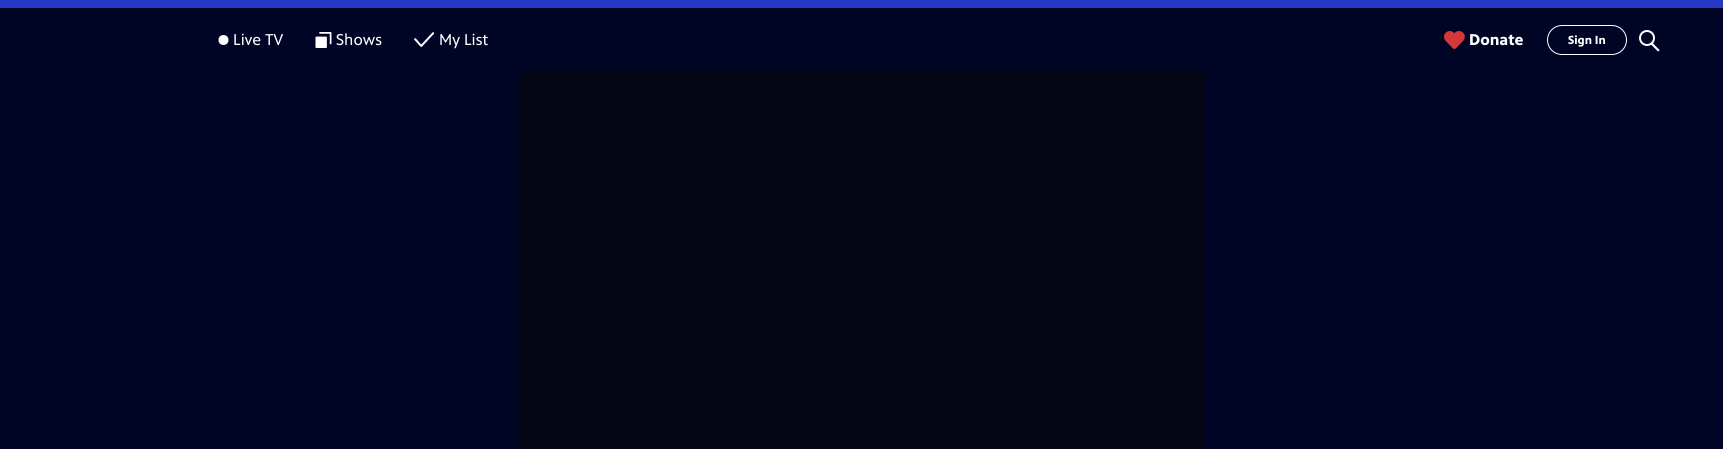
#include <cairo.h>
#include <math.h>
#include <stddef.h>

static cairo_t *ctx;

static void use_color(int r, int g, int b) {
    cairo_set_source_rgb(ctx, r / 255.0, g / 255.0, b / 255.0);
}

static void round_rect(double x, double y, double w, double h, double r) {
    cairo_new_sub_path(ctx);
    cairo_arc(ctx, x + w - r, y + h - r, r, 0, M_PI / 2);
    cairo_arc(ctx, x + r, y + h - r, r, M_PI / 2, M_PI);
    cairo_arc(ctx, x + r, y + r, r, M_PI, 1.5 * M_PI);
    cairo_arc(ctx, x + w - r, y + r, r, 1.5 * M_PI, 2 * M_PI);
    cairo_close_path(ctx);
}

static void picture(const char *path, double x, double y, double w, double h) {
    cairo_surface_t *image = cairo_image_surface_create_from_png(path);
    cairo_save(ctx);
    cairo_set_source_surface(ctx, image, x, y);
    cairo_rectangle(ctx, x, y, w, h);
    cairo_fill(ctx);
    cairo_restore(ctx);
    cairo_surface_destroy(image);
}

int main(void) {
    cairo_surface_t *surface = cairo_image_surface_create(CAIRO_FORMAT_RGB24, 1723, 449);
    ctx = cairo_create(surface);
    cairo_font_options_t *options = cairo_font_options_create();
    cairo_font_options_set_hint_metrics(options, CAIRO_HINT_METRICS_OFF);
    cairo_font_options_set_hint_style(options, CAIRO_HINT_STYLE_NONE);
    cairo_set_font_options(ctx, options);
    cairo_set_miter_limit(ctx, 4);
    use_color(0, 5, 37);
    cairo_paint(ctx);
    use_color(38, 56, 196);
    cairo_rectangle(ctx, 0, 0, 1723, 8);
    cairo_fill(ctx);
    use_color(255, 255, 255);
    cairo_arc(ctx, 223.5, 40, 5, 0, 2 * M_PI);
    cairo_fill(ctx);
    cairo_select_font_face(ctx, "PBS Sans", CAIRO_FONT_SLANT_NORMAL, CAIRO_FONT_WEIGHT_NORMAL);
    cairo_set_font_size(ctx, 16);
    cairo_move_to(ctx, 233, 45);
    cairo_show_text(ctx, "Live TV");
    picture("img1.png", 315, 32, 17, 16);
    cairo_move_to(ctx, 336, 45);
    cairo_show_text(ctx, "Shows");
    picture("img2.png", 414, 32, 21, 15);
    cairo_move_to(ctx, 439, 45);
    cairo_show_text(ctx, "My List");
    picture("img3.png", 1444, 31, 21, 18);
    cairo_select_font_face(ctx, "PBS Sans", CAIRO_FONT_SLANT_NORMAL, CAIRO_FONT_WEIGHT_BOLD);
    cairo_move_to(ctx, 1469, 45);
    cairo_show_text(ctx, "Donate");
    round_rect(1547.5, 25.5, 79, 29, 14.5);
    cairo_set_line_width(ctx, 1);
    cairo_stroke(ctx);
    cairo_set_font_size(ctx, 12);
    cairo_move_to(ctx, 1568, 44);
    cairo_show_text(ctx, "Sign In");
    cairo_new_path(ctx);
    cairo_arc(ctx, 1647, 38, 7, 0, 2 * M_PI);
    cairo_set_line_width(ctx, 2);
    cairo_stroke(ctx);
    cairo_new_path(ctx);
    cairo_move_to(ctx, 1657.5, 51);
    cairo_line_to(ctx, 1650.5, 44);
    cairo_line_to(ctx, 1651, 43);
    cairo_curve_to(ctx, 1652, 41.5, 1654, 44.5, 1654.5, 45);
    cairo_line_to(ctx, 1659.5, 50);
    cairo_curve_to(ctx, 1659.5, 51, 1658.5, 51.5, 1657.5, 51);
    cairo_close_path(ctx);
    cairo_fill(ctx);
    use_color(4, 6, 19);
    cairo_rectangle(ctx, 519, 72, 684, 377);
    cairo_fill(ctx);
    cairo_surface_write_to_png(surface, "result.png");
    cairo_font_options_destroy(options);
    cairo_destroy(ctx);
    cairo_surface_destroy(surface);
    return 0;
}
